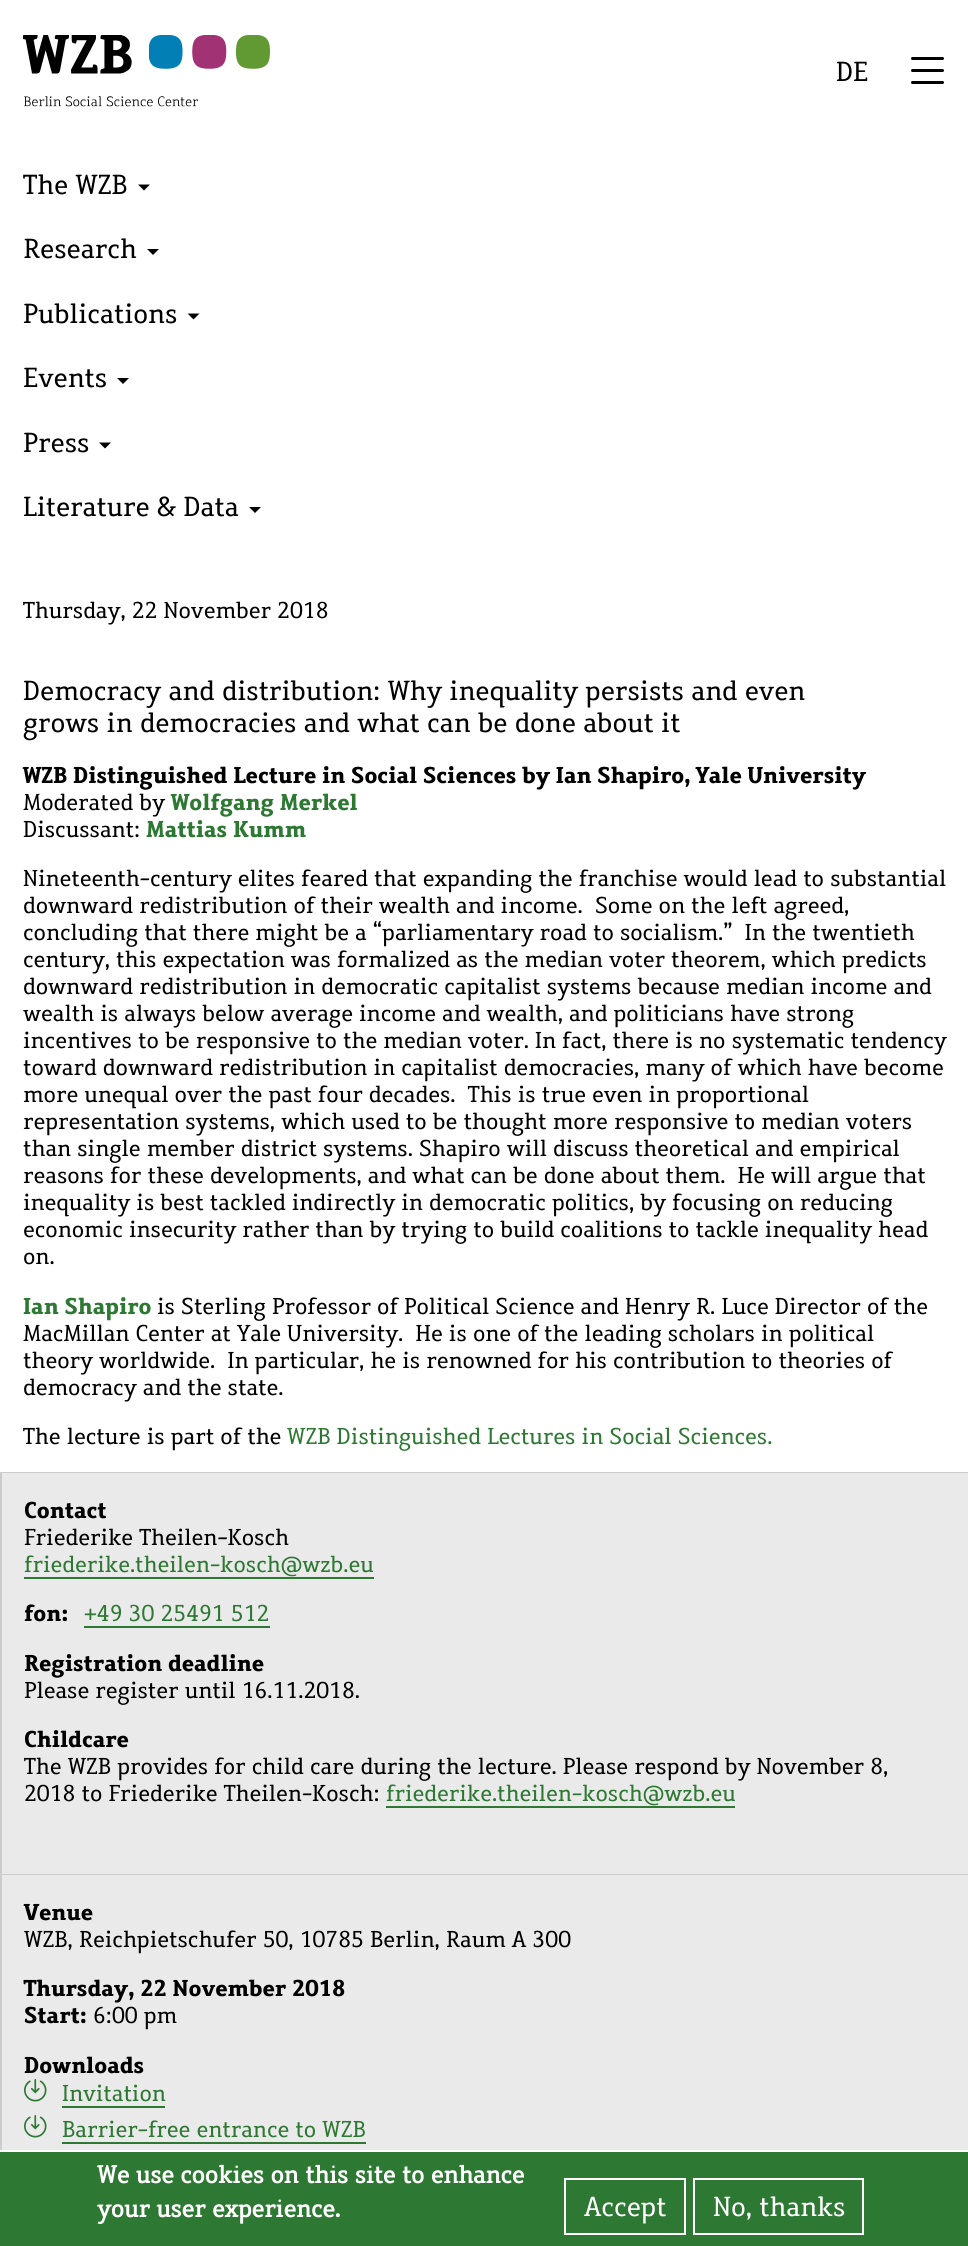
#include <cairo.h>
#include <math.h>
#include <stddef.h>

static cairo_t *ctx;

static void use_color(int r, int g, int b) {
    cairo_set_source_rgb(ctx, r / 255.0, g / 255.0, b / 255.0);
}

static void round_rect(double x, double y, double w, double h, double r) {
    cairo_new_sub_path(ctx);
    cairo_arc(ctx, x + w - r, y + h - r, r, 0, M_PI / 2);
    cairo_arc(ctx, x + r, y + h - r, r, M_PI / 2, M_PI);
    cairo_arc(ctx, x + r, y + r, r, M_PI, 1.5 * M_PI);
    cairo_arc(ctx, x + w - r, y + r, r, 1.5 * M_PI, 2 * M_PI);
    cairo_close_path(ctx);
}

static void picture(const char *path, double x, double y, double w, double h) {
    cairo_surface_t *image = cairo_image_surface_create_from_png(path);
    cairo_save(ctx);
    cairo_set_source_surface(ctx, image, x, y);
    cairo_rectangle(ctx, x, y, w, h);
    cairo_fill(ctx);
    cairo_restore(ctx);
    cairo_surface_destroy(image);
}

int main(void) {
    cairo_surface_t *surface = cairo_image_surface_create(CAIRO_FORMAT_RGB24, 968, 2246);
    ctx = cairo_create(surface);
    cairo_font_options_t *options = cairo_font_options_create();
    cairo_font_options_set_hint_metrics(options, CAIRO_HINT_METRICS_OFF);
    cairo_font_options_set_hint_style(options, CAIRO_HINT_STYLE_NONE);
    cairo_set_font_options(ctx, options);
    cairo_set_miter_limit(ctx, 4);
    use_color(255, 255, 255);
    cairo_paint(ctx);
    picture("img1.png", 23, 35, 175, 72);
    picture("img2.png", 149, 35, 121, 34);
    cairo_select_font_face(ctx, "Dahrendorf", CAIRO_FONT_SLANT_NORMAL, CAIRO_FONT_WEIGHT_NORMAL);
    cairo_set_font_size(ctx, 27);
    use_color(0, 0, 0);
    cairo_move_to(ctx, 836, 81);
    cairo_show_text(ctx, "DE");
    round_rect(911, 57, 33, 3, 1.5);
    cairo_fill(ctx);
    round_rect(911, 69, 33, 3, 1.5);
    cairo_fill(ctx);
    round_rect(911, 81, 33, 3, 1.5);
    cairo_fill(ctx);
    cairo_move_to(ctx, 23, 194);
    cairo_show_text(ctx, "The WZB");
    cairo_new_path(ctx);
    cairo_move_to(ctx, 138, 184.5);
    cairo_line_to(ctx, 150, 184.5);
    cairo_line_to(ctx, 144, 190.5);
    cairo_close_path(ctx);
    cairo_fill(ctx);
    cairo_move_to(ctx, 23, 258);
    cairo_show_text(ctx, "Research");
    cairo_new_path(ctx);
    cairo_move_to(ctx, 147, 249);
    cairo_line_to(ctx, 159, 249);
    cairo_line_to(ctx, 153, 255);
    cairo_close_path(ctx);
    cairo_fill(ctx);
    cairo_move_to(ctx, 23, 323);
    cairo_show_text(ctx, "Publications");
    cairo_new_path(ctx);
    cairo_move_to(ctx, 187.5, 313.5);
    cairo_line_to(ctx, 199.5, 313.5);
    cairo_line_to(ctx, 193.5, 319.5);
    cairo_close_path(ctx);
    cairo_fill(ctx);
    cairo_move_to(ctx, 23, 387);
    cairo_show_text(ctx, "Events");
    cairo_new_path(ctx);
    cairo_move_to(ctx, 117, 378);
    cairo_line_to(ctx, 129, 378);
    cairo_line_to(ctx, 123, 384);
    cairo_close_path(ctx);
    cairo_fill(ctx);
    cairo_move_to(ctx, 23, 452);
    cairo_show_text(ctx, "Press");
    cairo_new_path(ctx);
    cairo_move_to(ctx, 99, 442.5);
    cairo_line_to(ctx, 111, 442.5);
    cairo_line_to(ctx, 105, 448.5);
    cairo_close_path(ctx);
    cairo_fill(ctx);
    cairo_move_to(ctx, 23, 516);
    cairo_show_text(ctx, "Literature & Data");
    cairo_new_path(ctx);
    cairo_move_to(ctx, 249, 507);
    cairo_line_to(ctx, 261, 507);
    cairo_line_to(ctx, 255, 513);
    cairo_close_path(ctx);
    cairo_fill(ctx);
    cairo_set_font_size(ctx, 22.5);
    cairo_move_to(ctx, 23, 618);
    cairo_show_text(ctx, "Thursday, 22 November 2018");
    cairo_set_font_size(ctx, 27);
    cairo_move_to(ctx, 23, 700);
    cairo_show_text(ctx, "Democracy and distribution: Why inequality persists and even");
    cairo_move_to(ctx, 23, 732);
    cairo_show_text(ctx, "grows in democracies and what can be done about it");
    cairo_select_font_face(ctx, "Dahrendorf", CAIRO_FONT_SLANT_NORMAL, CAIRO_FONT_WEIGHT_BOLD);
    cairo_set_font_size(ctx, 22.5);
    cairo_move_to(ctx, 23, 783);
    cairo_show_text(ctx, "WZB Distinguished Lecture in Social Sciences by Ian Shapiro, Yale University");
    cairo_select_font_face(ctx, "Dahrendorf", CAIRO_FONT_SLANT_NORMAL, CAIRO_FONT_WEIGHT_NORMAL);
    cairo_move_to(ctx, 23, 810);
    cairo_show_text(ctx, "Moderated by");
    cairo_select_font_face(ctx, "Dahrendorf", CAIRO_FONT_SLANT_NORMAL, CAIRO_FONT_WEIGHT_BOLD);
    use_color(45, 120, 50);
    cairo_move_to(ctx, 171, 810);
    cairo_show_text(ctx, "Wolfgang Merkel");
    cairo_select_font_face(ctx, "Dahrendorf", CAIRO_FONT_SLANT_NORMAL, CAIRO_FONT_WEIGHT_NORMAL);
    use_color(0, 0, 0);
    cairo_move_to(ctx, 23, 837);
    cairo_show_text(ctx, "Discussant:");
    cairo_select_font_face(ctx, "Dahrendorf", CAIRO_FONT_SLANT_NORMAL, CAIRO_FONT_WEIGHT_BOLD);
    use_color(45, 120, 50);
    cairo_move_to(ctx, 146, 837);
    cairo_show_text(ctx, "Mattias Kumm");
    cairo_select_font_face(ctx, "Dahrendorf", CAIRO_FONT_SLANT_NORMAL, CAIRO_FONT_WEIGHT_NORMAL);
    use_color(0, 0, 0);
    cairo_move_to(ctx, 23, 886);
    cairo_show_text(ctx, "Nineteenth-century elites feared that expanding the franchise would lead to substantial");
    cairo_move_to(ctx, 23, 913);
    cairo_show_text(ctx, "downward redistribution of their wealth and income.  Some on the left agreed,");
    cairo_move_to(ctx, 23, 940);
    cairo_show_text(ctx, "concluding that there might be a “parliamentary road to socialism.”  In the twentieth");
    cairo_move_to(ctx, 23, 967);
    cairo_show_text(ctx, "century, this expectation was formalized as the median voter theorem, which predicts");
    cairo_move_to(ctx, 23, 994);
    cairo_show_text(ctx, "downward redistribution in democratic capitalist systems because median income and");
    cairo_move_to(ctx, 23, 1021);
    cairo_show_text(ctx, "wealth is always below average income and wealth, and politicians have strong");
    cairo_move_to(ctx, 23, 1048);
    cairo_show_text(ctx, "incentives to be responsive to the median voter. In fact, there is no systematic tendency");
    cairo_move_to(ctx, 23, 1075);
    cairo_show_text(ctx, "toward downward redistribution in capitalist democracies, many of which have become");
    cairo_move_to(ctx, 23, 1102);
    cairo_show_text(ctx, "more unequal over the past four decades.  This is true even in proportional");
    cairo_move_to(ctx, 23, 1129);
    cairo_show_text(ctx, "representation systems, which used to be thought more responsive to median voters");
    cairo_move_to(ctx, 23, 1156);
    cairo_show_text(ctx, "than single member district systems. Shapiro will discuss theoretical and empirical");
    cairo_move_to(ctx, 23, 1183);
    cairo_show_text(ctx, "reasons for these developments, and what can be done about them.  He will argue that");
    cairo_move_to(ctx, 23, 1210);
    cairo_show_text(ctx, "inequality is best tackled indirectly in democratic politics, by focusing on reducing");
    cairo_move_to(ctx, 23, 1237);
    cairo_show_text(ctx, "economic insecurity rather than by trying to build coalitions to tackle inequality head");
    cairo_move_to(ctx, 23, 1264);
    cairo_show_text(ctx, "on.");
    cairo_select_font_face(ctx, "Dahrendorf", CAIRO_FONT_SLANT_NORMAL, CAIRO_FONT_WEIGHT_BOLD);
    use_color(45, 120, 50);
    cairo_move_to(ctx, 23, 1314);
    cairo_show_text(ctx, "Ian Shapiro");
    cairo_select_font_face(ctx, "Dahrendorf", CAIRO_FONT_SLANT_NORMAL, CAIRO_FONT_WEIGHT_NORMAL);
    use_color(0, 0, 0);
    cairo_move_to(ctx, 157, 1314);
    cairo_show_text(ctx, "is Sterling Professor of Political Science and Henry R. Luce Director of the");
    cairo_move_to(ctx, 23, 1341);
    cairo_show_text(ctx, "MacMillan Center at Yale University.  He is one of the leading scholars in political");
    cairo_move_to(ctx, 23, 1368);
    cairo_show_text(ctx, "theory worldwide.  In particular, he is renowned for his contribution to theories of");
    cairo_move_to(ctx, 23, 1395);
    cairo_show_text(ctx, "democracy and the state.");
    cairo_move_to(ctx, 23, 1444);
    cairo_show_text(ctx, "The lecture is part of the");
    use_color(45, 120, 50);
    cairo_move_to(ctx, 287, 1444);
    cairo_show_text(ctx, "WZB Distinguished Lectures in Social Sciences.");
    use_color(204, 204, 204);
    cairo_rectangle(ctx, 0, 1472, 2, 678);
    cairo_fill(ctx);
    cairo_rectangle(ctx, 2, 1472, 966, 1);
    cairo_fill(ctx);
    use_color(234, 234, 234);
    cairo_rectangle(ctx, 2, 1473, 966, 401);
    cairo_fill(ctx);
    use_color(204, 204, 204);
    cairo_rectangle(ctx, 2, 1874, 966, 1);
    cairo_fill(ctx);
    cairo_select_font_face(ctx, "Dahrendorf", CAIRO_FONT_SLANT_NORMAL, CAIRO_FONT_WEIGHT_BOLD);
    use_color(0, 0, 0);
    cairo_move_to(ctx, 24, 1518);
    cairo_show_text(ctx, "Contact");
    cairo_select_font_face(ctx, "Dahrendorf", CAIRO_FONT_SLANT_NORMAL, CAIRO_FONT_WEIGHT_NORMAL);
    cairo_move_to(ctx, 24, 1545);
    cairo_show_text(ctx, "Friederike Theilen-Kosch");
    use_color(45, 120, 50);
    cairo_move_to(ctx, 24, 1572);
    cairo_show_text(ctx, "friederike.theilen-kosch@wzb.eu");
    cairo_rectangle(ctx, 24, 1577, 350, 2);
    cairo_fill(ctx);
    cairo_select_font_face(ctx, "Dahrendorf", CAIRO_FONT_SLANT_NORMAL, CAIRO_FONT_WEIGHT_BOLD);
    use_color(0, 0, 0);
    cairo_move_to(ctx, 24, 1621);
    cairo_show_text(ctx, "fon:");
    cairo_select_font_face(ctx, "Dahrendorf", CAIRO_FONT_SLANT_NORMAL, CAIRO_FONT_WEIGHT_NORMAL);
    use_color(45, 120, 50);
    cairo_move_to(ctx, 84, 1621);
    cairo_show_text(ctx, "+49 30 25491 512");
    cairo_rectangle(ctx, 84, 1626, 186, 2);
    cairo_fill(ctx);
    cairo_select_font_face(ctx, "Dahrendorf", CAIRO_FONT_SLANT_NORMAL, CAIRO_FONT_WEIGHT_BOLD);
    use_color(0, 0, 0);
    cairo_move_to(ctx, 24, 1671);
    cairo_show_text(ctx, "Registration deadline");
    cairo_select_font_face(ctx, "Dahrendorf", CAIRO_FONT_SLANT_NORMAL, CAIRO_FONT_WEIGHT_NORMAL);
    cairo_move_to(ctx, 24, 1698);
    cairo_show_text(ctx, "Please register until 16.11.2018.");
    cairo_select_font_face(ctx, "Dahrendorf", CAIRO_FONT_SLANT_NORMAL, CAIRO_FONT_WEIGHT_BOLD);
    cairo_move_to(ctx, 24, 1747);
    cairo_show_text(ctx, "Childcare");
    cairo_select_font_face(ctx, "Dahrendorf", CAIRO_FONT_SLANT_NORMAL, CAIRO_FONT_WEIGHT_NORMAL);
    cairo_move_to(ctx, 24, 1774);
    cairo_show_text(ctx, "The WZB provides for child care during the lecture. Please respond by November 8,");
    cairo_move_to(ctx, 24, 1801);
    cairo_show_text(ctx, "2018 to Friederike Theilen-Kosch:");
    use_color(45, 120, 50);
    cairo_move_to(ctx, 386, 1801);
    cairo_show_text(ctx, "friederike.theilen-kosch@wzb.eu");
    cairo_rectangle(ctx, 386, 1806, 349, 2);
    cairo_fill(ctx);
    use_color(234, 234, 234);
    cairo_rectangle(ctx, 2, 1875, 966, 275);
    cairo_fill(ctx);
    cairo_select_font_face(ctx, "Dahrendorf", CAIRO_FONT_SLANT_NORMAL, CAIRO_FONT_WEIGHT_BOLD);
    use_color(0, 0, 0);
    cairo_move_to(ctx, 24, 1920);
    cairo_show_text(ctx, "Venue");
    cairo_select_font_face(ctx, "Dahrendorf", CAIRO_FONT_SLANT_NORMAL, CAIRO_FONT_WEIGHT_NORMAL);
    cairo_move_to(ctx, 24, 1947);
    cairo_show_text(ctx, "WZB, Reichpietschufer 50, 10785 Berlin, Raum A 300");
    cairo_select_font_face(ctx, "Dahrendorf", CAIRO_FONT_SLANT_NORMAL, CAIRO_FONT_WEIGHT_BOLD);
    cairo_move_to(ctx, 24, 1996);
    cairo_show_text(ctx, "Thursday, 22 November 2018");
    cairo_move_to(ctx, 24, 2023);
    cairo_show_text(ctx, "Start:");
    cairo_select_font_face(ctx, "Dahrendorf", CAIRO_FONT_SLANT_NORMAL, CAIRO_FONT_WEIGHT_NORMAL);
    cairo_move_to(ctx, 93, 2023);
    cairo_show_text(ctx, "6:00 pm");
    cairo_select_font_face(ctx, "Dahrendorf", CAIRO_FONT_SLANT_NORMAL, CAIRO_FONT_WEIGHT_BOLD);
    cairo_move_to(ctx, 24, 2073);
    cairo_show_text(ctx, "Downloads");
    picture("img3.png", 24, 2079, 23, 23);
    cairo_select_font_face(ctx, "Dahrendorf", CAIRO_FONT_SLANT_NORMAL, CAIRO_FONT_WEIGHT_NORMAL);
    use_color(45, 120, 50);
    cairo_move_to(ctx, 62, 2101);
    cairo_show_text(ctx, "Invitation");
    cairo_rectangle(ctx, 62, 2106, 103, 2);
    cairo_fill(ctx);
    picture("img3.png", 24, 2115, 23, 23);
    cairo_move_to(ctx, 62, 2137);
    cairo_show_text(ctx, "Barrier-free entrance to WZB");
    cairo_rectangle(ctx, 62, 2142, 304, 2);
    cairo_fill(ctx);
    cairo_rectangle(ctx, 0, 2152, 968, 94);
    cairo_fill(ctx);
    cairo_select_font_face(ctx, "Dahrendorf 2", CAIRO_FONT_SLANT_NORMAL, CAIRO_FONT_WEIGHT_BOLD);
    cairo_set_font_size(ctx, 24);
    use_color(255, 255, 255);
    cairo_move_to(ctx, 97, 2183);
    cairo_show_text(ctx, "We use cookies on this site to enhance");
    cairo_move_to(ctx, 97, 2217);
    cairo_show_text(ctx, "your user experience.");
    cairo_rectangle(ctx, 565, 2179, 120, 55);
    cairo_stroke(ctx);
    cairo_select_font_face(ctx, "Dahrendorf", CAIRO_FONT_SLANT_NORMAL, CAIRO_FONT_WEIGHT_NORMAL);
    cairo_set_font_size(ctx, 27);
    cairo_move_to(ctx, 584, 2216);
    cairo_show_text(ctx, "Accept");
    cairo_rectangle(ctx, 694, 2179, 169, 55);
    cairo_stroke(ctx);
    cairo_move_to(ctx, 713, 2216);
    cairo_show_text(ctx, "No, thanks");
    cairo_surface_write_to_png(surface, "result.png");
    cairo_font_options_destroy(options);
    cairo_destroy(ctx);
    cairo_surface_destroy(surface);
    return 0;
}
